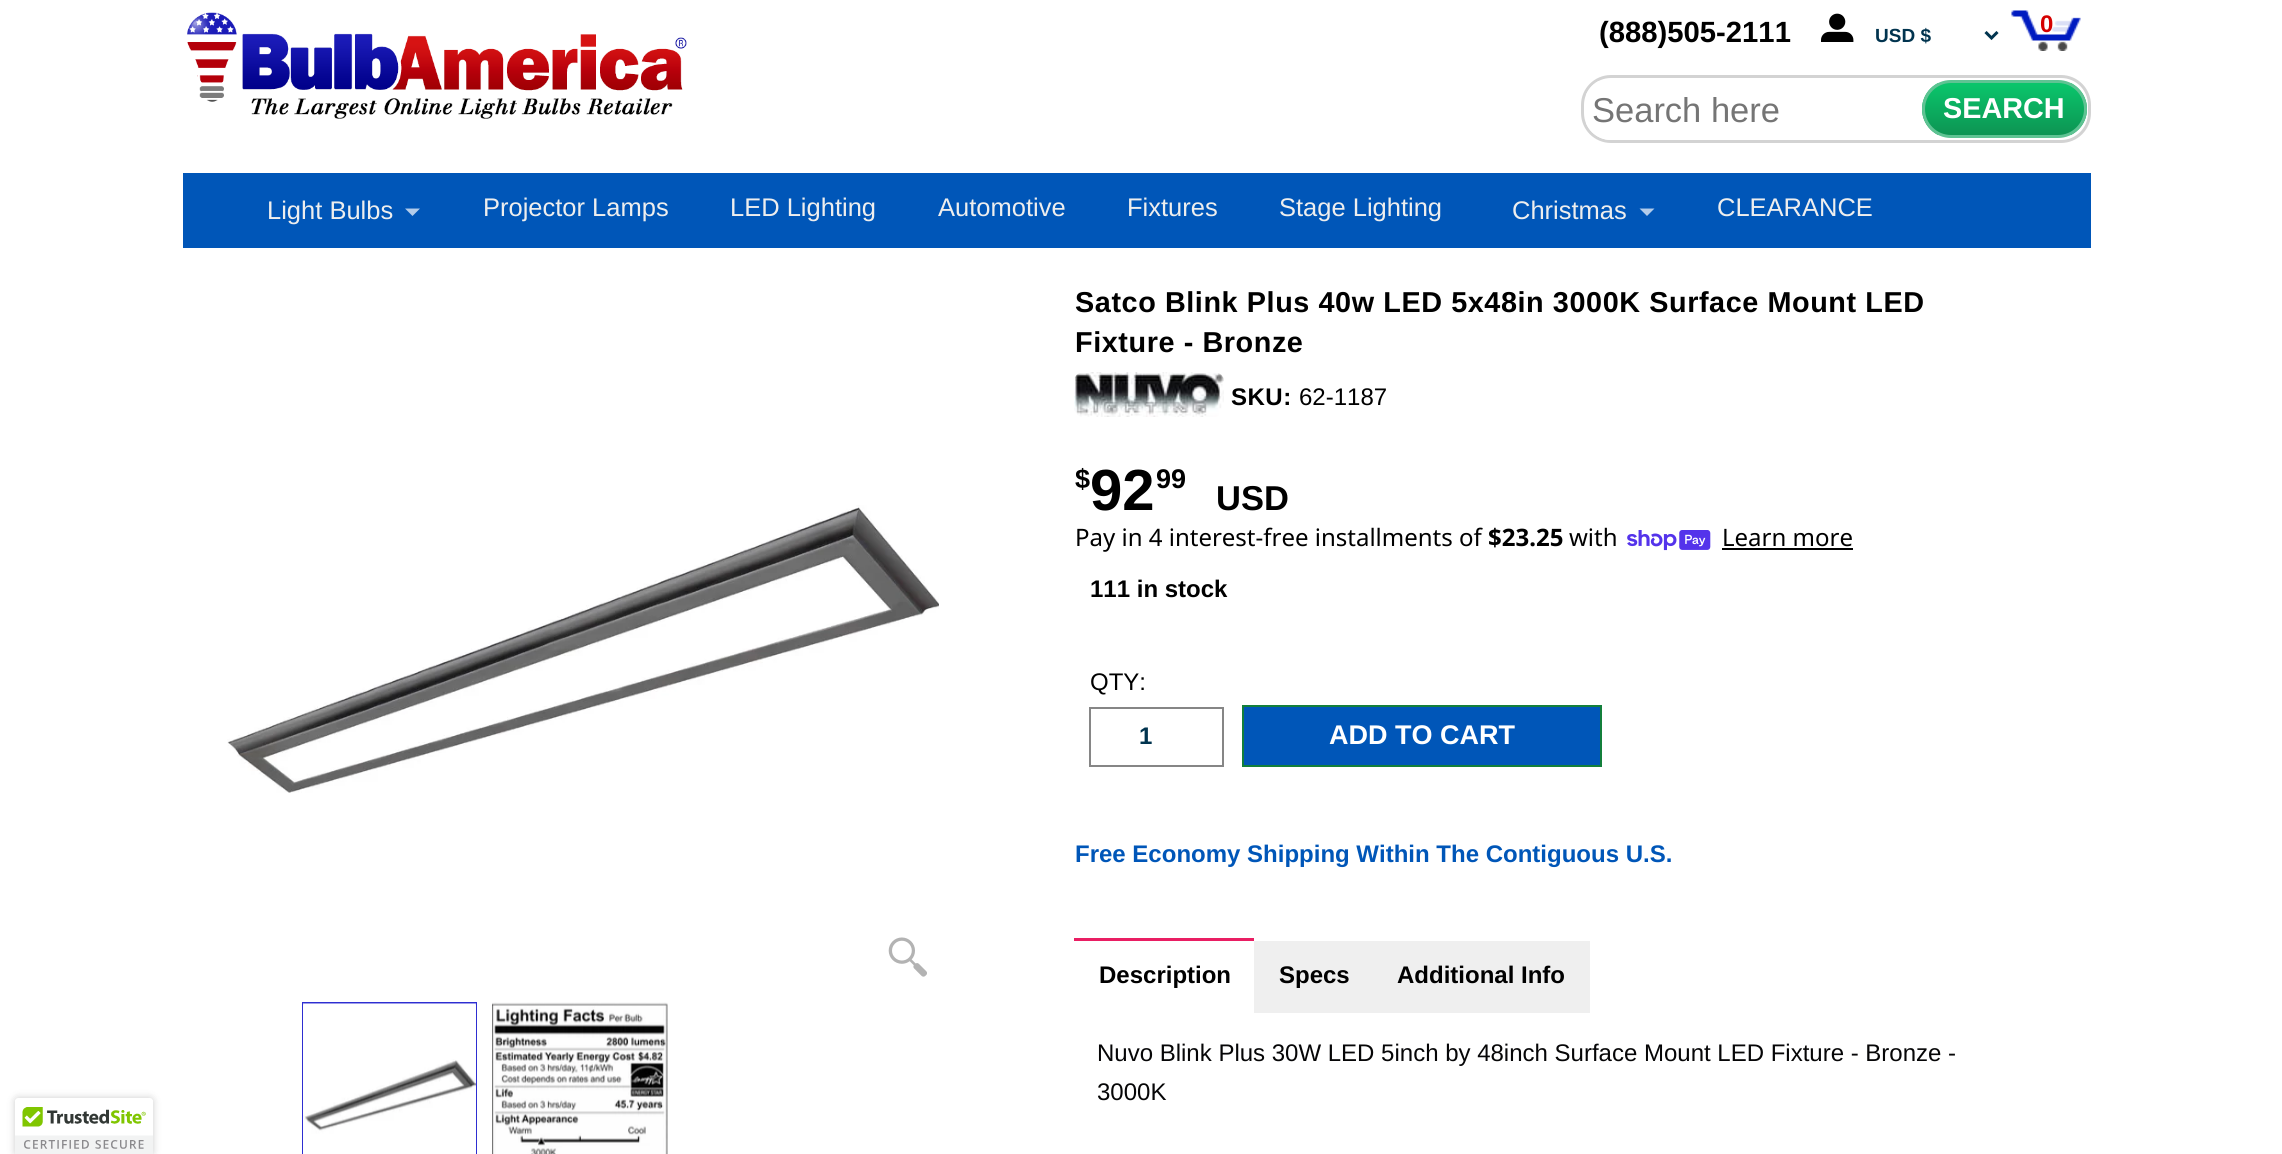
#include <cairo.h>
#include <math.h>
#include <stddef.h>

static cairo_t *ctx;

static void use_color(int r, int g, int b) {
    cairo_set_source_rgb(ctx, r / 255.0, g / 255.0, b / 255.0);
}

static void spaced_text(double x, double y, const char *s, double letter, double word) {
    cairo_move_to(ctx, x, y);
    while (*s) {
        char ch[5] = {0};
        int n = 0;
        do ch[n++] = *s++; while ((*s & 0xC0) == 0x80);
        cairo_show_text(ctx, ch);
        cairo_rel_move_to(ctx, letter + word * (*ch == ' '), 0);
    }
}

static void round_rect(double x, double y, double w, double h, double r) {
    cairo_new_sub_path(ctx);
    cairo_arc(ctx, x + w - r, y + h - r, r, 0, M_PI / 2);
    cairo_arc(ctx, x + r, y + h - r, r, M_PI / 2, M_PI);
    cairo_arc(ctx, x + r, y + r, r, M_PI, 1.5 * M_PI);
    cairo_arc(ctx, x + w - r, y + r, r, 1.5 * M_PI, 2 * M_PI);
    cairo_close_path(ctx);
}

static void shadow(double x, double y, double w, double h, double r, double blur, double alpha) {
    cairo_push_group_with_content(ctx, CAIRO_CONTENT_ALPHA);
    cairo_set_operator(ctx, CAIRO_OPERATOR_SOURCE);
    for (int i = 15; i >= -15 && fmin(w, h) + blur * i / 3 > 0; i -= 2) {
        double e = blur * i / 6;
        cairo_set_source_rgba(ctx, 0, 0, 0, alpha * erfc((i - 1) / 8.5) / 2);
        round_rect(x - e, y - e, w + 2 * e, h + 2 * e, fmax(0, fmin(r + e + blur * .6, fmin(w, h) / 2 + e)));
        cairo_fill(ctx);
    }
    cairo_pattern_t *soft = cairo_pop_group(ctx);
    cairo_mask(ctx, soft);
    cairo_pattern_destroy(soft);
}

static void picture(const char *path, double x, double y, double w, double h) {
    cairo_surface_t *image = cairo_image_surface_create_from_png(path);
    cairo_save(ctx);
    cairo_set_source_surface(ctx, image, x, y);
    cairo_rectangle(ctx, x, y, w, h);
    cairo_fill(ctx);
    cairo_restore(ctx);
    cairo_surface_destroy(image);
}

int main(void) {
    cairo_surface_t *surface = cairo_image_surface_create(CAIRO_FORMAT_RGB24, 2282, 1154);
    ctx = cairo_create(surface);
    cairo_font_options_t *options = cairo_font_options_create();
    cairo_font_options_set_hint_metrics(options, CAIRO_HINT_METRICS_OFF);
    cairo_font_options_set_hint_style(options, CAIRO_HINT_STYLE_NONE);
    cairo_set_font_options(ctx, options);
    cairo_set_miter_limit(ctx, 4);
    cairo_pattern_t *gradient;
    use_color(255, 255, 255);
    cairo_paint(ctx);
    picture("img1.png", 187, 12, 500, 107);
    cairo_select_font_face(ctx, "Liberation Sans", CAIRO_FONT_SLANT_NORMAL, CAIRO_FONT_WEIGHT_BOLD);
    cairo_set_font_size(ctx, 29.25);
    use_color(0, 0, 0);
    cairo_move_to(ctx, 1599, 42);
    cairo_show_text(ctx, "(888)505-2111");
    picture("img2.png", 1821, 13, 33, 29);
    picture("img3.png", 2011, 10, 70, 41);
    cairo_set_font_size(ctx, 24);
    use_color(213, 0, 0);
    cairo_move_to(ctx, 2040, 32);
    cairo_show_text(ctx, "0");
    cairo_new_path(ctx);
    cairo_move_to(ctx, 1985.5, 32);
    cairo_line_to(ctx, 1991.5, 38);
    cairo_line_to(ctx, 1997.5, 32);
    use_color(1, 52, 79);
    cairo_set_line_width(ctx, 3);
    cairo_stroke(ctx);
    cairo_set_font_size(ctx, 19);
    cairo_move_to(ctx, 1875, 42);
    cairo_show_text(ctx, "USD $");
    round_rect(1582.5, 76.5, 507, 65, 28.5);
    use_color(211, 211, 211);
    cairo_stroke(ctx);
    cairo_save(ctx);
    round_rect(1584, 78, 504, 62, 27);
    cairo_clip(ctx);
    use_color(255, 255, 255);
    cairo_rectangle(ctx, 1586, 81, 322, 59);
    cairo_fill(ctx);
    cairo_restore(ctx);
    cairo_select_font_face(ctx, "Liberation Sans", CAIRO_FONT_SLANT_NORMAL, CAIRO_FONT_WEIGHT_NORMAL);
    cairo_set_font_size(ctx, 34.5);
    use_color(117, 117, 117);
    cairo_move_to(ctx, 1592, 122);
    cairo_show_text(ctx, "Search here");
    cairo_save(ctx);
    round_rect(1922, 80, 165, 58, 29);
    cairo_clip(ctx);
    gradient = cairo_pattern_create_linear(2004, 82, 2004, 135);
    cairo_pattern_add_color_stop_rgba(gradient, 0, 0.039, 0.78, 0.424, 1);
    cairo_pattern_add_color_stop_rgba(gradient, 1, 0.051, 0.58, 0.325, 1);
    cairo_set_source(ctx, gradient);
    cairo_pattern_destroy(gradient);
    cairo_rectangle(ctx, 1922, 83, 165, 52);
    cairo_fill(ctx);
    cairo_restore(ctx);
    round_rect(1923.5, 81.5, 162, 55, 27.5);
    use_color(95, 195, 147);
    cairo_stroke(ctx);
    cairo_select_font_face(ctx, "Liberation Sans", CAIRO_FONT_SLANT_NORMAL, CAIRO_FONT_WEIGHT_BOLD);
    cairo_set_font_size(ctx, 28.8);
    use_color(255, 255, 255);
    cairo_move_to(ctx, 1943, 118);
    cairo_show_text(ctx, "SEARCH");
    use_color(0, 86, 184);
    cairo_rectangle(ctx, 183, 173, 1908, 75);
    cairo_fill(ctx);
    cairo_select_font_face(ctx, "Liberation Sans", CAIRO_FONT_SLANT_NORMAL, CAIRO_FONT_WEIGHT_NORMAL);
    cairo_set_font_size(ctx, 25.5);
    use_color(238, 238, 238);
    cairo_move_to(ctx, 267, 219);
    cairo_show_text(ctx, "Light Bulbs");
    use_color(179, 204, 234);
    cairo_new_path(ctx);
    cairo_move_to(ctx, 405, 208.5);
    cairo_line_to(ctx, 420, 208.5);
    cairo_line_to(ctx, 412.5, 216);
    cairo_close_path(ctx);
    cairo_fill(ctx);
    use_color(238, 238, 238);
    cairo_move_to(ctx, 483, 216);
    cairo_show_text(ctx, "Projector Lamps");
    cairo_move_to(ctx, 730, 216);
    cairo_show_text(ctx, "LED Lighting");
    cairo_move_to(ctx, 938, 216);
    cairo_show_text(ctx, "Automotive");
    cairo_move_to(ctx, 1127, 216);
    cairo_show_text(ctx, "Fixtures");
    cairo_move_to(ctx, 1279, 216);
    cairo_show_text(ctx, "Stage Lighting");
    cairo_move_to(ctx, 1512, 219);
    cairo_show_text(ctx, "Christmas");
    use_color(179, 204, 234);
    cairo_new_path(ctx);
    cairo_move_to(ctx, 1639.5, 208.5);
    cairo_line_to(ctx, 1654.5, 208.5);
    cairo_line_to(ctx, 1647, 216);
    cairo_close_path(ctx);
    cairo_fill(ctx);
    use_color(238, 238, 238);
    cairo_move_to(ctx, 1717, 216);
    cairo_show_text(ctx, "CLEARANCE");
    picture("img4.png", 227, 505, 712, 288);
    picture("img5.png", 888, 937, 39, 40);
    cairo_rectangle(ctx, 303, 1003, 173, 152);
    use_color(46, 46, 209);
    cairo_set_line_width(ctx, 2);
    cairo_stroke(ctx);
    picture("img6.png", 303, 1003, 173, 151);
    picture("img7.png", 492, 1002, 176, 152);
    cairo_select_font_face(ctx, "Liberation Sans", CAIRO_FONT_SLANT_NORMAL, CAIRO_FONT_WEIGHT_BOLD);
    cairo_set_font_size(ctx, 28.8);
    use_color(0, 0, 0);
    spaced_text(1075, 312, "Satco Blink Plus 40w LED 5x48in 3000K Surface Mount LED", 0.58, 0);
    spaced_text(1075, 352, "Fixture - Bronze", 0.58, 0);
    picture("img8.png", 1074, 372, 150, 45);
    cairo_set_font_size(ctx, 24);
    spaced_text(1231, 405, "SKU:", 0.5, 0);
    cairo_select_font_face(ctx, "Liberation Sans", CAIRO_FONT_SLANT_NORMAL, CAIRO_FONT_WEIGHT_NORMAL);
    cairo_move_to(ctx, 1299, 405);
    cairo_show_text(ctx, "62-1187");
    cairo_select_font_face(ctx, "Liberation Sans", CAIRO_FONT_SLANT_NORMAL, CAIRO_FONT_WEIGHT_BOLD);
    cairo_set_font_size(ctx, 27);
    cairo_move_to(ctx, 1075, 488);
    cairo_show_text(ctx, "$");
    cairo_set_font_size(ctx, 58);
    cairo_move_to(ctx, 1090, 510);
    cairo_show_text(ctx, "92");
    cairo_set_font_size(ctx, 27);
    cairo_move_to(ctx, 1156, 488);
    cairo_show_text(ctx, "99");
    cairo_set_font_size(ctx, 34.5);
    cairo_move_to(ctx, 1216, 510);
    cairo_show_text(ctx, "USD");
    cairo_select_font_face(ctx, "Noto Sans", CAIRO_FONT_SLANT_NORMAL, CAIRO_FONT_WEIGHT_NORMAL);
    cairo_set_font_size(ctx, 24);
    cairo_move_to(ctx, 1075, 546);
    cairo_show_text(ctx, "Pay in 4 interest-free installments of");
    cairo_select_font_face(ctx, "Noto Sans", CAIRO_FONT_SLANT_NORMAL, CAIRO_FONT_WEIGHT_BOLD);
    cairo_move_to(ctx, 1488, 546);
    cairo_show_text(ctx, "$23.25");
    cairo_select_font_face(ctx, "Noto Sans", CAIRO_FONT_SLANT_NORMAL, CAIRO_FONT_WEIGHT_NORMAL);
    cairo_move_to(ctx, 1569, 546);
    cairo_show_text(ctx, "with");
    picture("img9.png", 1627, 530, 84, 21);
    cairo_move_to(ctx, 1722, 546);
    cairo_show_text(ctx, "Learn more");
    cairo_rectangle(ctx, 1722, 548, 131, 2);
    cairo_fill(ctx);
    cairo_select_font_face(ctx, "Liberation Sans", CAIRO_FONT_SLANT_NORMAL, CAIRO_FONT_WEIGHT_BOLD);
    cairo_move_to(ctx, 1090, 597);
    cairo_show_text(ctx, "111 in stock");
    cairo_select_font_face(ctx, "Liberation Sans", CAIRO_FONT_SLANT_NORMAL, CAIRO_FONT_WEIGHT_NORMAL);
    cairo_move_to(ctx, 1090, 690);
    cairo_show_text(ctx, "QTY:");
    cairo_rectangle(ctx, 1090, 708, 133, 58);
    use_color(134, 134, 134);
    cairo_stroke(ctx);
    cairo_select_font_face(ctx, "Liberation Sans", CAIRO_FONT_SLANT_NORMAL, CAIRO_FONT_WEIGHT_BOLD);
    use_color(1, 52, 79);
    cairo_move_to(ctx, 1139, 744);
    cairo_show_text(ctx, "1");
    use_color(0, 86, 184);
    cairo_rectangle(ctx, 1243, 706, 358, 60);
    cairo_fill_preserve(ctx);
    use_color(19, 127, 59);
    cairo_stroke(ctx);
    cairo_set_font_size(ctx, 27);
    use_color(255, 255, 255);
    cairo_move_to(ctx, 1329, 744);
    cairo_show_text(ctx, "ADD TO CART");
    cairo_set_font_size(ctx, 24);
    use_color(0, 86, 184);
    cairo_move_to(ctx, 1075, 862);
    cairo_show_text(ctx, "Free Economy Shipping Within The Contiguous U.S.");
    use_color(233, 30, 99);
    cairo_rectangle(ctx, 1074, 938, 180, 3);
    cairo_fill(ctx);
    use_color(0, 0, 0);
    cairo_move_to(ctx, 1099, 983);
    cairo_show_text(ctx, "Description");
    use_color(239, 239, 239);
    cairo_rectangle(ctx, 1254, 941, 336, 72);
    cairo_fill(ctx);
    use_color(0, 0, 0);
    cairo_move_to(ctx, 1279, 983);
    cairo_show_text(ctx, "Specs");
    cairo_move_to(ctx, 1397, 983);
    cairo_show_text(ctx, "Additional Info");
    cairo_select_font_face(ctx, "Liberation Sans", CAIRO_FONT_SLANT_NORMAL, CAIRO_FONT_WEIGHT_NORMAL);
    use_color(6, 6, 7);
    cairo_move_to(ctx, 1097, 1061);
    cairo_show_text(ctx, "Nuvo Blink Plus 30W LED 5inch by 48inch Surface Mount LED Fixture - Bronze -");
    cairo_move_to(ctx, 1097, 1100);
    cairo_show_text(ctx, "3000K");
    use_color(0, 0, 0);
    shadow(15, 1098, 138, 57, 3, 4, 0.2);
    use_color(255, 255, 255);
    cairo_new_path(ctx);
    cairo_move_to(ctx, 18, 1098);
    cairo_line_to(ctx, 150, 1098);
    cairo_curve_to(ctx, 151.5, 1098, 153, 1099.5, 153, 1101);
    cairo_line_to(ctx, 153, 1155);
    cairo_line_to(ctx, 15, 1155);
    cairo_line_to(ctx, 15, 1101);
    cairo_curve_to(ctx, 15, 1099.5, 16.5, 1098, 18, 1098);
    cairo_close_path(ctx);
    cairo_fill(ctx);
    picture("img10.png", 15, 1099, 138, 55);
    cairo_surface_write_to_png(surface, "result.png");
    cairo_font_options_destroy(options);
    cairo_destroy(ctx);
    cairo_surface_destroy(surface);
    return 0;
}
